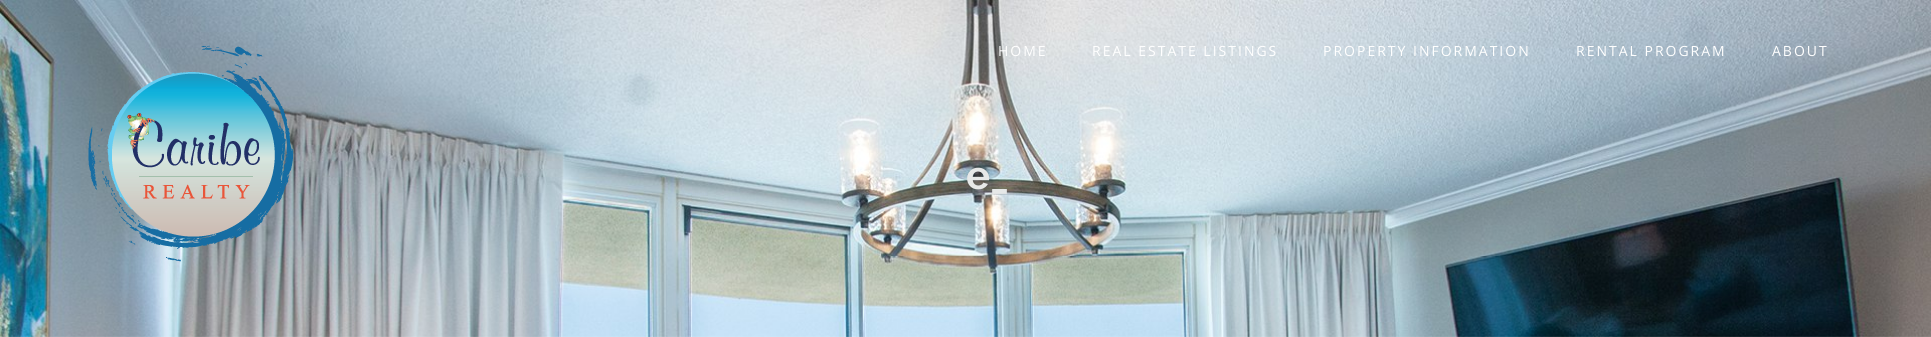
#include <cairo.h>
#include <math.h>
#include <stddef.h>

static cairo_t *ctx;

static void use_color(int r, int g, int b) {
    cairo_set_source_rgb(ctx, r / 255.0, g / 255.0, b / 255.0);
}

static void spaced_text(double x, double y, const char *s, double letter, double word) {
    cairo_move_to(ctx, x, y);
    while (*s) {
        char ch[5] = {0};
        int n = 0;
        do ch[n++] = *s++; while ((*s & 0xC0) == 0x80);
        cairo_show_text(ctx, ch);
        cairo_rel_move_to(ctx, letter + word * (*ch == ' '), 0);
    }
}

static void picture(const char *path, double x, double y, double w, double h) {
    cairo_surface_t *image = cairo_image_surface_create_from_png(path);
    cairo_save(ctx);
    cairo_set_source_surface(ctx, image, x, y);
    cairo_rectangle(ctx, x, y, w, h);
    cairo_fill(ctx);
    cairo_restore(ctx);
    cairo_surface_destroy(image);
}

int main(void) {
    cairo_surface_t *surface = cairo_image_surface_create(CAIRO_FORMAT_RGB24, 1931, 337);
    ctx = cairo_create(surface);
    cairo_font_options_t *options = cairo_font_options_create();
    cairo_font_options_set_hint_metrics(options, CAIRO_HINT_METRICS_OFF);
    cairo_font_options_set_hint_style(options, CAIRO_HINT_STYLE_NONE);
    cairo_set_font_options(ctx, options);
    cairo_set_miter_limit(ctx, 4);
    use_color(255, 255, 255);
    cairo_paint(ctx);
    picture("img2.png", 0, 0, 1931, 337);
    picture("img1.png", 88, 45, 206, 217);
    cairo_select_font_face(ctx, "Open Sans", CAIRO_FONT_SLANT_NORMAL, CAIRO_FONT_WEIGHT_NORMAL);
    cairo_set_font_size(ctx, 14);
    use_color(255, 255, 255);
    spaced_text(998, 56, "HOME", 2, 0);
    spaced_text(1092, 56, "REAL ESTATE LISTINGS", 2, 0);
    spaced_text(1323, 56, "PROPERTY INFORMATION", 2, 0);
    spaced_text(1576, 56, "RENTAL PROGRAM", 2, 0);
    spaced_text(1772, 56, "ABOUT", 2, 0);
    cairo_select_font_face(ctx, "Raleway Thin", CAIRO_FONT_SLANT_NORMAL, CAIRO_FONT_WEIGHT_NORMAL);
    cairo_set_font_size(ctx, 40);
    use_color(230, 232, 232);
    cairo_move_to(ctx, 966, 189);
    cairo_show_text(ctx, "e_");
    cairo_surface_write_to_png(surface, "result.png");
    cairo_font_options_destroy(options);
    cairo_destroy(ctx);
    cairo_surface_destroy(surface);
    return 0;
}
